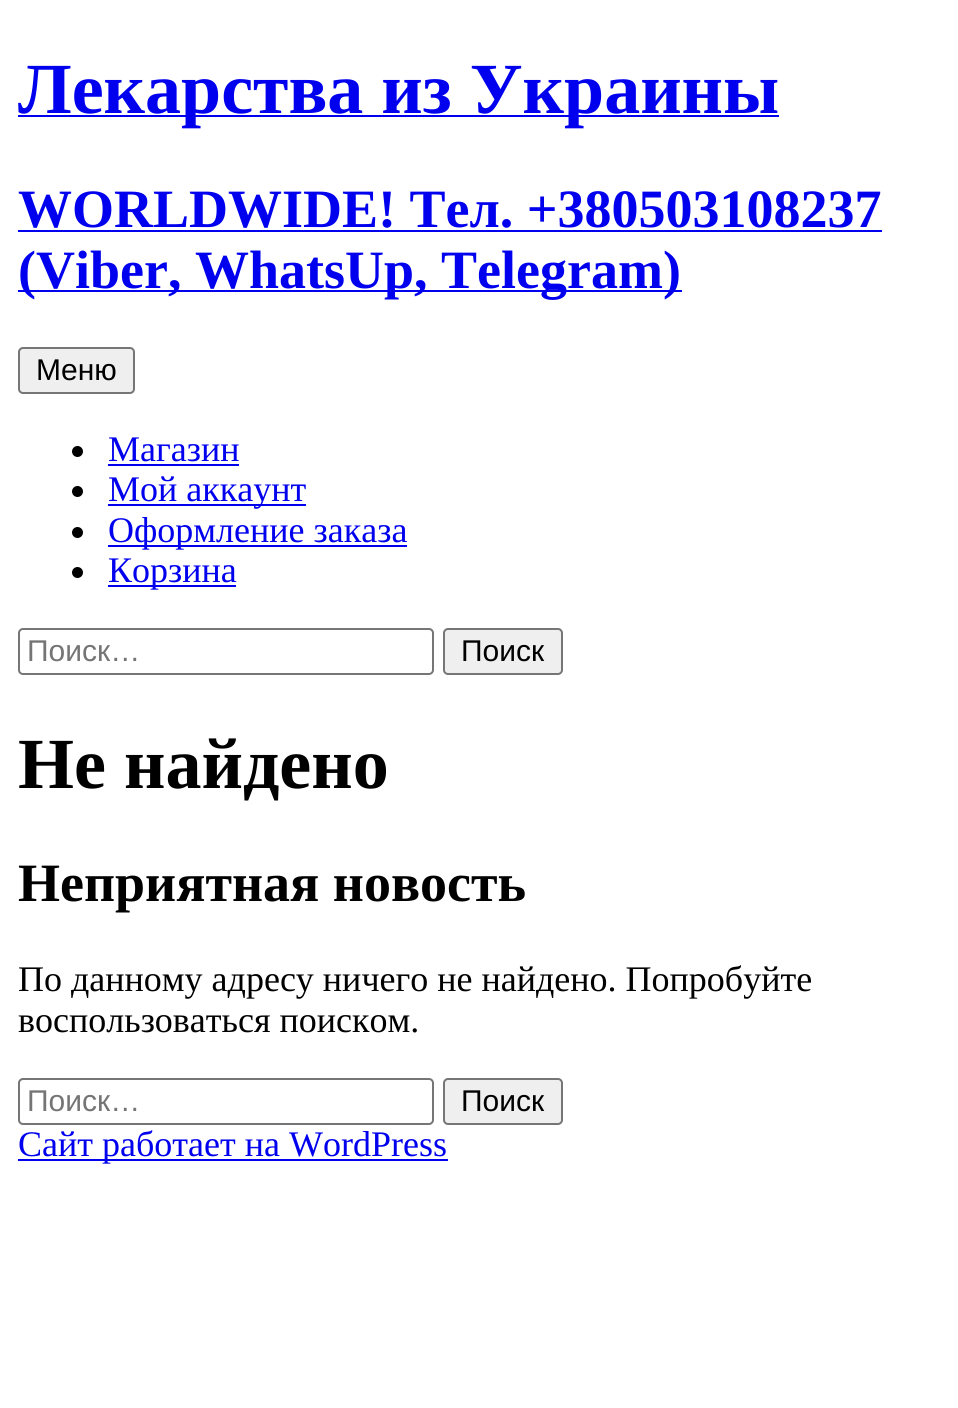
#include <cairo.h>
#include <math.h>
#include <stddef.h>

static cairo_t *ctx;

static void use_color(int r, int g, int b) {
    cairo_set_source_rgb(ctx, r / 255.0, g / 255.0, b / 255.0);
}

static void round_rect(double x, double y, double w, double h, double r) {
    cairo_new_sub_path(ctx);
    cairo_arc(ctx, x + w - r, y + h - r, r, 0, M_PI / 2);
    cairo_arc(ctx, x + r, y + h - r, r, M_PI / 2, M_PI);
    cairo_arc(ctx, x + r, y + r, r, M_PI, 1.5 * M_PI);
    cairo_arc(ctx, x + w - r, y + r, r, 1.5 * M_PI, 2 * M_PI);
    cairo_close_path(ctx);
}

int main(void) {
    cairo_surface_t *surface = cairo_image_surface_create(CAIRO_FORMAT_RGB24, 958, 1408);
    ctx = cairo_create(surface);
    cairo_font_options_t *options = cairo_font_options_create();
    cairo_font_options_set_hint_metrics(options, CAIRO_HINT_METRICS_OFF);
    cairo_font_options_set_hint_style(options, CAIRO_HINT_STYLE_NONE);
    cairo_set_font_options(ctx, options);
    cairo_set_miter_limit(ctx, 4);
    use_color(255, 255, 255);
    cairo_paint(ctx);
    use_color(0, 0, 238);
    cairo_rectangle(ctx, 18, 115, 761, 2);
    cairo_fill(ctx);
    cairo_select_font_face(ctx, "Liberation Serif", CAIRO_FONT_SLANT_NORMAL, CAIRO_FONT_WEIGHT_BOLD);
    cairo_set_font_size(ctx, 72);
    cairo_move_to(ctx, 18, 113);
    cairo_show_text(ctx, "Лекарства из Украины");
    cairo_set_font_size(ctx, 54);
    cairo_move_to(ctx, 18, 227);
    cairo_show_text(ctx, "WORLDWIDE! Тел. +380503108237");
    cairo_rectangle(ctx, 18, 230, 864, 2);
    cairo_fill(ctx);
    cairo_rectangle(ctx, 18, 290, 664, 2);
    cairo_fill(ctx);
    cairo_move_to(ctx, 18, 288);
    cairo_show_text(ctx, "(Viber, WhatsUp, Telegram)");
    use_color(239, 239, 239);
    round_rect(19, 348, 115, 45, 4);
    cairo_fill_preserve(ctx);
    use_color(118, 118, 118);
    cairo_stroke(ctx);
    cairo_select_font_face(ctx, "Liberation Sans", CAIRO_FONT_SLANT_NORMAL, CAIRO_FONT_WEIGHT_NORMAL);
    cairo_set_font_size(ctx, 30);
    use_color(0, 0, 0);
    cairo_move_to(ctx, 36, 380);
    cairo_show_text(ctx, "Меню");
    cairo_new_path(ctx);
    cairo_arc(ctx, 77.5, 451.5, 5.5, 0, 2 * M_PI);
    cairo_fill(ctx);
    cairo_select_font_face(ctx, "Liberation Serif", CAIRO_FONT_SLANT_NORMAL, CAIRO_FONT_WEIGHT_NORMAL);
    cairo_set_font_size(ctx, 36);
    use_color(0, 0, 238);
    cairo_move_to(ctx, 108, 461);
    cairo_show_text(ctx, "Магазин");
    cairo_rectangle(ctx, 108, 464, 131, 2);
    cairo_fill(ctx);
    use_color(0, 0, 0);
    cairo_arc(ctx, 77.5, 491.5, 5.5, 0, 2 * M_PI);
    cairo_fill(ctx);
    use_color(0, 0, 238);
    cairo_rectangle(ctx, 108, 504, 198, 2);
    cairo_fill(ctx);
    cairo_move_to(ctx, 108, 501);
    cairo_show_text(ctx, "Мой аккаунт");
    use_color(0, 0, 0);
    cairo_new_path(ctx);
    cairo_arc(ctx, 77.5, 532.5, 5.5, 0, 2 * M_PI);
    cairo_fill(ctx);
    use_color(0, 0, 238);
    cairo_rectangle(ctx, 108, 545, 299, 2);
    cairo_fill(ctx);
    cairo_move_to(ctx, 108, 542);
    cairo_show_text(ctx, "Оформление заказа");
    use_color(0, 0, 0);
    cairo_new_path(ctx);
    cairo_arc(ctx, 77.5, 572.5, 5.5, 0, 2 * M_PI);
    cairo_fill(ctx);
    use_color(0, 0, 238);
    cairo_rectangle(ctx, 108, 585, 128, 2);
    cairo_fill(ctx);
    cairo_move_to(ctx, 108, 582);
    cairo_show_text(ctx, "Корзина");
    round_rect(19, 629, 414, 45, 4);
    use_color(118, 118, 118);
    cairo_stroke(ctx);
    cairo_select_font_face(ctx, "Liberation Sans", CAIRO_FONT_SLANT_NORMAL, CAIRO_FONT_WEIGHT_NORMAL);
    cairo_set_font_size(ctx, 30);
    use_color(117, 117, 117);
    cairo_move_to(ctx, 27, 661);
    cairo_show_text(ctx, "Поиск…");
    use_color(239, 239, 239);
    round_rect(444, 629, 118, 45, 4);
    cairo_fill_preserve(ctx);
    use_color(118, 118, 118);
    cairo_stroke(ctx);
    use_color(0, 0, 0);
    cairo_move_to(ctx, 461, 661);
    cairo_show_text(ctx, "Поиск");
    cairo_select_font_face(ctx, "Liberation Serif", CAIRO_FONT_SLANT_NORMAL, CAIRO_FONT_WEIGHT_BOLD);
    cairo_set_font_size(ctx, 72);
    cairo_move_to(ctx, 18, 788);
    cairo_show_text(ctx, "Не найдено");
    cairo_set_font_size(ctx, 54);
    cairo_move_to(ctx, 18, 901);
    cairo_show_text(ctx, "Неприятная новость");
    cairo_select_font_face(ctx, "Liberation Serif", CAIRO_FONT_SLANT_NORMAL, CAIRO_FONT_WEIGHT_NORMAL);
    cairo_set_font_size(ctx, 36);
    cairo_move_to(ctx, 18, 991);
    cairo_show_text(ctx, "По данному адресу ничего не найдено. Попробуйте");
    cairo_move_to(ctx, 18, 1032);
    cairo_show_text(ctx, "воспользоваться поиском.");
    round_rect(19, 1079, 414, 45, 4);
    use_color(118, 118, 118);
    cairo_stroke(ctx);
    cairo_select_font_face(ctx, "Liberation Sans", CAIRO_FONT_SLANT_NORMAL, CAIRO_FONT_WEIGHT_NORMAL);
    cairo_set_font_size(ctx, 30);
    use_color(117, 117, 117);
    cairo_move_to(ctx, 27, 1111);
    cairo_show_text(ctx, "Поиск…");
    use_color(239, 239, 239);
    round_rect(444, 1079, 118, 45, 4);
    cairo_fill_preserve(ctx);
    use_color(118, 118, 118);
    cairo_stroke(ctx);
    use_color(0, 0, 0);
    cairo_move_to(ctx, 461, 1111);
    cairo_show_text(ctx, "Поиск");
    use_color(0, 0, 238);
    cairo_rectangle(ctx, 18, 1159, 430, 2);
    cairo_fill(ctx);
    cairo_select_font_face(ctx, "Liberation Serif", CAIRO_FONT_SLANT_NORMAL, CAIRO_FONT_WEIGHT_NORMAL);
    cairo_set_font_size(ctx, 36);
    cairo_move_to(ctx, 18, 1156);
    cairo_show_text(ctx, "Сайт работает на WordPress");
    cairo_surface_write_to_png(surface, "result.png");
    cairo_font_options_destroy(options);
    cairo_destroy(ctx);
    cairo_surface_destroy(surface);
    return 0;
}
